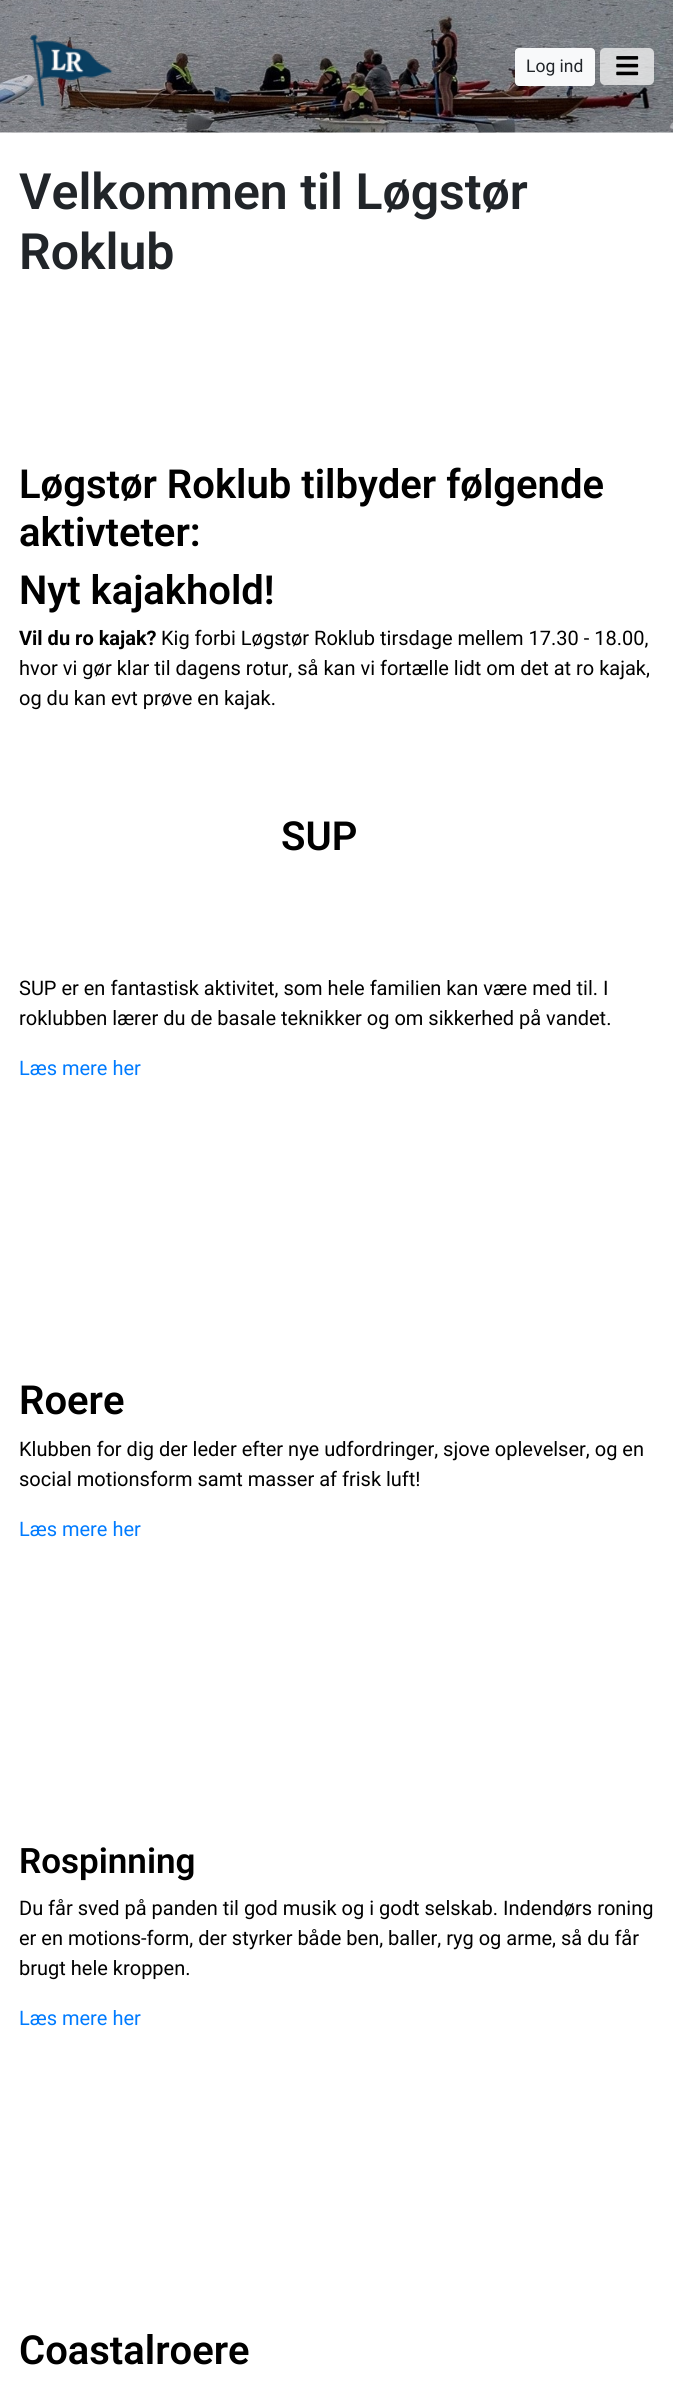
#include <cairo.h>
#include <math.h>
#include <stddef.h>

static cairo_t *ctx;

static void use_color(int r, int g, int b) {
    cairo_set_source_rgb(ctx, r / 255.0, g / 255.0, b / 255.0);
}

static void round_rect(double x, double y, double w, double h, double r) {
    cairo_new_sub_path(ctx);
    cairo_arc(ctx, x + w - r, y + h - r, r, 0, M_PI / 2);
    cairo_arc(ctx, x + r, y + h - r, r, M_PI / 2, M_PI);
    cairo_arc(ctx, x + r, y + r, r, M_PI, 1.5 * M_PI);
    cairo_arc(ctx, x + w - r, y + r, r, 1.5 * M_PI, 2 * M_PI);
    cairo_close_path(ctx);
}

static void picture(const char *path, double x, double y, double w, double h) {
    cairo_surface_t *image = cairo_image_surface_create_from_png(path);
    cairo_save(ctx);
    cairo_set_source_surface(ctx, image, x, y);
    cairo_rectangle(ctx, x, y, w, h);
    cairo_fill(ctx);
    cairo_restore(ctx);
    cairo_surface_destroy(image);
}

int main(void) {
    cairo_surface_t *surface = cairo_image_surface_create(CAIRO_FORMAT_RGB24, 673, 2389);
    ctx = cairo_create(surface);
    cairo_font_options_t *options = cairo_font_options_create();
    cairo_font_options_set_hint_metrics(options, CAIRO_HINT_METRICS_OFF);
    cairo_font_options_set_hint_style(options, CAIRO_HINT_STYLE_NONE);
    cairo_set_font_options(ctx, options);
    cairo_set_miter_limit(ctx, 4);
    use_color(255, 255, 255);
    cairo_paint(ctx);
    picture("img1.png", 0, 0, 673, 133);
    picture("img2.png", 30, 34, 83, 73);
    use_color(248, 249, 250);
    round_rect(515.5, 48.5, 79, 37, 3.5);
    cairo_fill_preserve(ctx);
    cairo_set_line_width(ctx, 1);
    cairo_stroke(ctx);
    cairo_select_font_face(ctx, "Roboto", CAIRO_FONT_SLANT_NORMAL, CAIRO_FONT_WEIGHT_NORMAL);
    cairo_set_font_size(ctx, 17.5);
    use_color(33, 37, 41);
    cairo_move_to(ctx, 526, 72);
    cairo_show_text(ctx, "Log ind");
    cairo_set_source_rgba(ctx, 0.937, 0.937, 0.937, 0.8);
    round_rect(600, 48, 54, 37, 5);
    cairo_fill(ctx);
    picture("img3.png", 616, 56, 23, 20);
    cairo_select_font_face(ctx, "Roboto SemiBold", CAIRO_FONT_SLANT_NORMAL, CAIRO_FONT_WEIGHT_NORMAL);
    cairo_set_font_size(ctx, 50);
    use_color(33, 37, 41);
    cairo_move_to(ctx, 19, 209);
    cairo_show_text(ctx, "Velkommen til Løgstør");
    cairo_move_to(ctx, 19, 269);
    cairo_show_text(ctx, "Roklub");
    cairo_set_font_size(ctx, 40);
    use_color(0, 0, 0);
    cairo_move_to(ctx, 19, 498);
    cairo_show_text(ctx, "Løgstør Roklub tilbyder følgende");
    cairo_move_to(ctx, 19, 546);
    cairo_show_text(ctx, "aktivteter:");
    cairo_move_to(ctx, 19, 604);
    cairo_show_text(ctx, "Nyt kajakhold!");
    cairo_select_font_face(ctx, "Roboto", CAIRO_FONT_SLANT_NORMAL, CAIRO_FONT_WEIGHT_BOLD);
    cairo_set_font_size(ctx, 20);
    cairo_move_to(ctx, 19, 645);
    cairo_show_text(ctx, "Vil du ro kajak?");
    cairo_select_font_face(ctx, "Roboto", CAIRO_FONT_SLANT_NORMAL, CAIRO_FONT_WEIGHT_NORMAL);
    cairo_move_to(ctx, 161, 645);
    cairo_show_text(ctx, "Kig forbi Løgstør Roklub tirsdage mellem 17.30 - 18.00,");
    cairo_move_to(ctx, 19, 675);
    cairo_show_text(ctx, "hvor vi gør klar til dagens rotur, så kan vi fortælle lidt om det at ro kajak,");
    cairo_move_to(ctx, 19, 705);
    cairo_show_text(ctx, "og du kan evt prøve en kajak.");
    cairo_select_font_face(ctx, "Roboto SemiBold", CAIRO_FONT_SLANT_NORMAL, CAIRO_FONT_WEIGHT_NORMAL);
    cairo_set_font_size(ctx, 40);
    cairo_move_to(ctx, 281, 850);
    cairo_show_text(ctx, "SUP");
    cairo_select_font_face(ctx, "Roboto", CAIRO_FONT_SLANT_NORMAL, CAIRO_FONT_WEIGHT_NORMAL);
    cairo_set_font_size(ctx, 20);
    cairo_move_to(ctx, 19, 995);
    cairo_show_text(ctx, "SUP er en fantastisk aktivitet, som hele familien kan være med til. I");
    cairo_move_to(ctx, 19, 1025);
    cairo_show_text(ctx, "roklubben lærer du de basale teknikker og om sikkerhed på vandet.");
    use_color(0, 123, 255);
    cairo_move_to(ctx, 19, 1075);
    cairo_show_text(ctx, "Læs mere her");
    cairo_select_font_face(ctx, "Roboto SemiBold", CAIRO_FONT_SLANT_NORMAL, CAIRO_FONT_WEIGHT_NORMAL);
    cairo_set_font_size(ctx, 40);
    use_color(0, 0, 0);
    cairo_move_to(ctx, 19, 1414);
    cairo_show_text(ctx, "Roere");
    cairo_select_font_face(ctx, "Roboto", CAIRO_FONT_SLANT_NORMAL, CAIRO_FONT_WEIGHT_NORMAL);
    cairo_set_font_size(ctx, 20);
    cairo_move_to(ctx, 19, 1456);
    cairo_show_text(ctx, "Klubben for dig der leder efter nye udfordringer, sjove oplevelser, og en");
    cairo_move_to(ctx, 19, 1486);
    cairo_show_text(ctx, "social motionsform samt masser af frisk luft!");
    use_color(0, 123, 255);
    cairo_move_to(ctx, 19, 1536);
    cairo_show_text(ctx, "Læs mere her");
    cairo_select_font_face(ctx, "Roboto SemiBold", CAIRO_FONT_SLANT_NORMAL, CAIRO_FONT_WEIGHT_NORMAL);
    cairo_set_font_size(ctx, 35);
    use_color(0, 0, 0);
    cairo_move_to(ctx, 19, 1873);
    cairo_show_text(ctx, "Rospinning");
    cairo_select_font_face(ctx, "Roboto", CAIRO_FONT_SLANT_NORMAL, CAIRO_FONT_WEIGHT_NORMAL);
    cairo_set_font_size(ctx, 20);
    cairo_move_to(ctx, 19, 1915);
    cairo_show_text(ctx, "Du får sved på panden til god musik og i godt selskab. Indendørs roning");
    cairo_move_to(ctx, 19, 1945);
    cairo_show_text(ctx, "er en motions-form, der styrker både ben, baller, ryg og arme, så du får");
    cairo_move_to(ctx, 19, 1975);
    cairo_show_text(ctx, "brugt hele kroppen.");
    use_color(0, 123, 255);
    cairo_move_to(ctx, 19, 2025);
    cairo_show_text(ctx, "Læs mere her");
    cairo_select_font_face(ctx, "Roboto SemiBold", CAIRO_FONT_SLANT_NORMAL, CAIRO_FONT_WEIGHT_NORMAL);
    cairo_set_font_size(ctx, 40);
    use_color(0, 0, 0);
    cairo_move_to(ctx, 19, 2364);
    cairo_show_text(ctx, "Coastalroere");
    cairo_surface_write_to_png(surface, "result.png");
    cairo_font_options_destroy(options);
    cairo_destroy(ctx);
    cairo_surface_destroy(surface);
    return 0;
}
